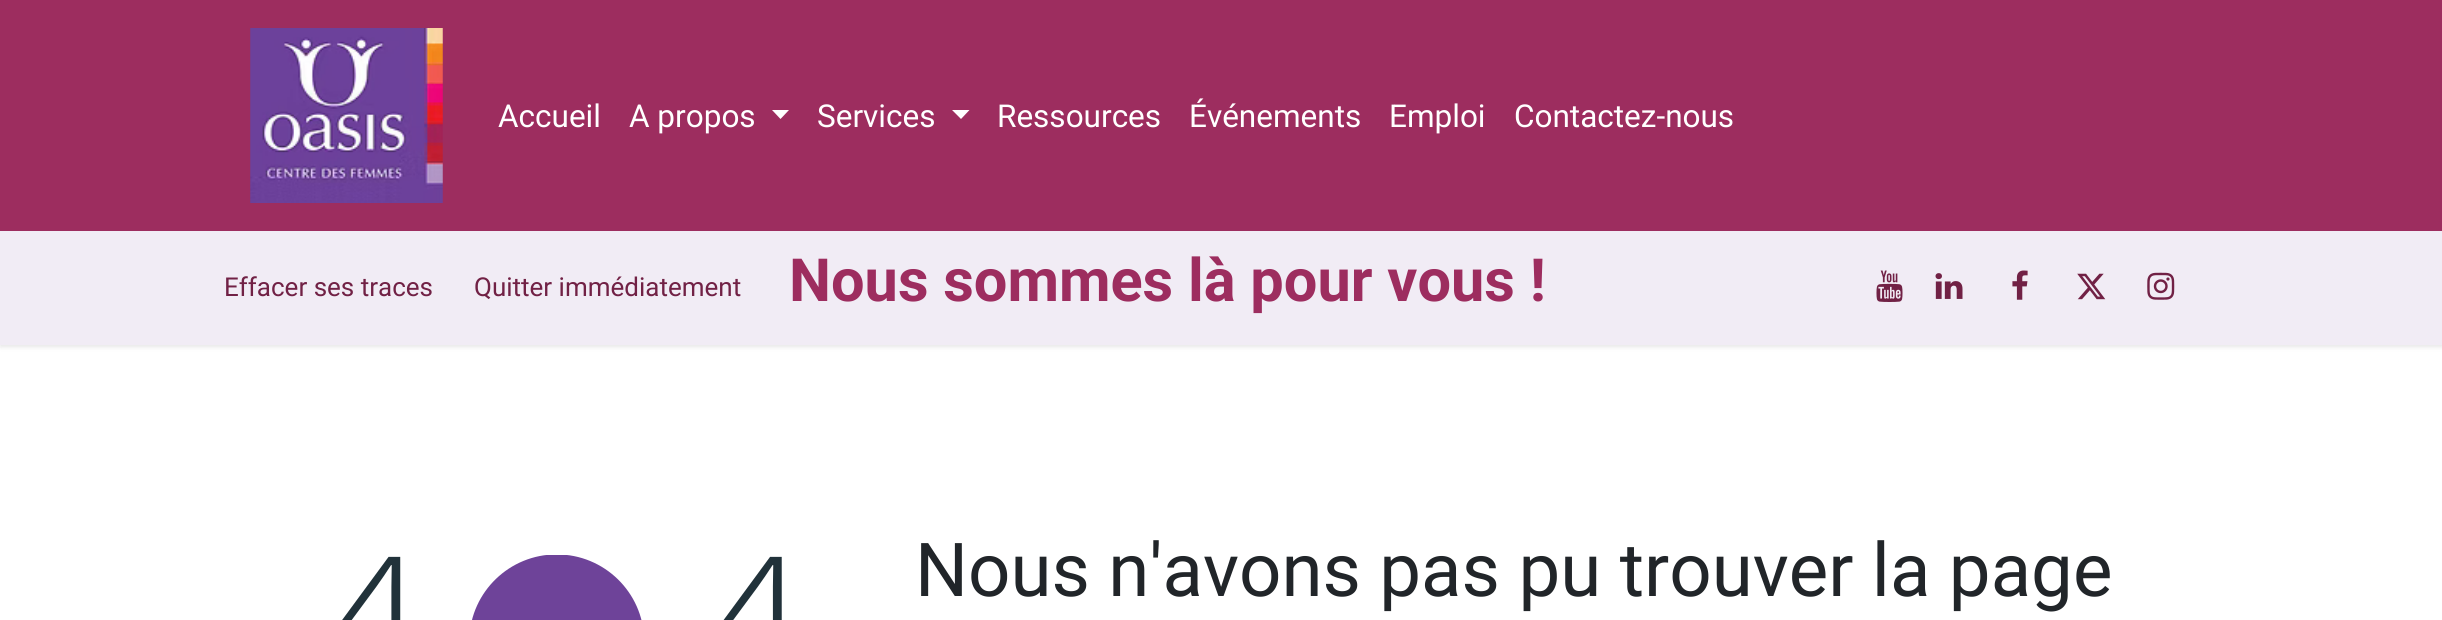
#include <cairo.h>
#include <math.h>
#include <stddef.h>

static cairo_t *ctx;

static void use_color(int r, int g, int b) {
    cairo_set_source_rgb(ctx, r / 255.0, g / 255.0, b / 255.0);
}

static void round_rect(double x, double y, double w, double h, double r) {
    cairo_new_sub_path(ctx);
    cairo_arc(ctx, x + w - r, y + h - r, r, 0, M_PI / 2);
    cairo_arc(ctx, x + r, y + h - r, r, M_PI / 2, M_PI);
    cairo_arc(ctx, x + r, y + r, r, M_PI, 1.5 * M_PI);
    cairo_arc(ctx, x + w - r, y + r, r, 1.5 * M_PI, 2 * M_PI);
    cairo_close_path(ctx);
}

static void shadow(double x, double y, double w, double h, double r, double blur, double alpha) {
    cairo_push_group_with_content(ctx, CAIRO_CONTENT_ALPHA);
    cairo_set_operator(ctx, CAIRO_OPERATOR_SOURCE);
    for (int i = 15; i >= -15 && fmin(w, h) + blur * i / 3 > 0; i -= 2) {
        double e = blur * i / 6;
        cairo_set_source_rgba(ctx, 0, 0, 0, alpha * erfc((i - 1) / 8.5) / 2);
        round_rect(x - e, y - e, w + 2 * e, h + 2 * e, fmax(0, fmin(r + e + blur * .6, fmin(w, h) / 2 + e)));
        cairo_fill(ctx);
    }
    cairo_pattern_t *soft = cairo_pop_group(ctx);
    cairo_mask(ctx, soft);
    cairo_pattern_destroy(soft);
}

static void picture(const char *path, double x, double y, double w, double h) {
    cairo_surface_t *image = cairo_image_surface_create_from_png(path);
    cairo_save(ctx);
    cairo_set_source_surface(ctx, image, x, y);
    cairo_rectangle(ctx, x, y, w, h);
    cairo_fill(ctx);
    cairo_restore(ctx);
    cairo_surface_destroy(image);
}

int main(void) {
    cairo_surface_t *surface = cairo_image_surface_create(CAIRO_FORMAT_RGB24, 2442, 620);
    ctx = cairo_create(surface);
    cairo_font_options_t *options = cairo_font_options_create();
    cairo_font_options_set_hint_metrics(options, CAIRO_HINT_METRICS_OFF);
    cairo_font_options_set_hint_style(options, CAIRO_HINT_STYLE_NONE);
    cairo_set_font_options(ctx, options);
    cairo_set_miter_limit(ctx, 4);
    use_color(255, 255, 255);
    cairo_paint(ctx);
    use_color(0, 0, 0);
    shadow(0, 2, 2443, 345, 0, 2.5, 0.1);
    use_color(157, 45, 95);
    cairo_rectangle(ctx, 0, 0, 2442, 231);
    cairo_fill(ctx);
    picture("img1.png", 250, 28, 193, 175);
    cairo_select_font_face(ctx, "Roboto", CAIRO_FONT_SLANT_NORMAL, CAIRO_FONT_WEIGHT_NORMAL);
    cairo_set_font_size(ctx, 31.5);
    use_color(255, 255, 255);
    cairo_move_to(ctx, 498, 127);
    cairo_show_text(ctx, "Accueil");
    cairo_move_to(ctx, 629, 127);
    cairo_show_text(ctx, "A propos");
    cairo_new_path(ctx);
    cairo_move_to(ctx, 772, 110);
    cairo_line_to(ctx, 789, 110);
    cairo_line_to(ctx, 780.5, 119);
    cairo_close_path(ctx);
    cairo_fill(ctx);
    cairo_move_to(ctx, 817, 127);
    cairo_show_text(ctx, "Services");
    cairo_new_path(ctx);
    cairo_move_to(ctx, 952, 110);
    cairo_line_to(ctx, 969.5, 110);
    cairo_line_to(ctx, 961, 119);
    cairo_close_path(ctx);
    cairo_fill(ctx);
    cairo_move_to(ctx, 997, 127);
    cairo_show_text(ctx, "Ressources");
    cairo_move_to(ctx, 1189, 127);
    cairo_show_text(ctx, "Événements");
    cairo_move_to(ctx, 1389, 127);
    cairo_show_text(ctx, "Emploi");
    cairo_move_to(ctx, 1514, 127);
    cairo_show_text(ctx, "Contactez-nous");
    use_color(241, 236, 245);
    cairo_rectangle(ctx, 0, 231, 2442, 114);
    cairo_fill(ctx);
    cairo_set_font_size(ctx, 26);
    use_color(113, 33, 69);
    cairo_move_to(ctx, 224, 296);
    cairo_show_text(ctx, "Effacer ses traces");
    cairo_move_to(ctx, 474, 296);
    cairo_show_text(ctx, "Quitter immédiatement");
    cairo_select_font_face(ctx, "Roboto", CAIRO_FONT_SLANT_NORMAL, CAIRO_FONT_WEIGHT_BOLD);
    cairo_set_font_size(ctx, 59.5);
    use_color(157, 45, 95);
    cairo_move_to(ctx, 789, 301);
    cairo_show_text(ctx, "Nous sommes là pour vous !");
    picture("img2.png", 1876, 270, 27, 32);
    picture("img3.png", 1935, 273, 28, 26);
    picture("img4.png", 2012, 270, 16, 30);
    picture("img5.png", 2077, 273, 29, 27);
    picture("img6.png", 2147, 272, 28, 28);
    picture("img7.png", 342, 555, 440, 65);
    cairo_select_font_face(ctx, "Roboto", CAIRO_FONT_SLANT_NORMAL, CAIRO_FONT_WEIGHT_NORMAL);
    cairo_set_font_size(ctx, 74.4);
    use_color(33, 37, 41);
    cairo_move_to(ctx, 915, 596);
    cairo_show_text(ctx, "Nous n'avons pas pu trouver la page");
    cairo_surface_write_to_png(surface, "result.png");
    cairo_font_options_destroy(options);
    cairo_destroy(ctx);
    cairo_surface_destroy(surface);
    return 0;
}
